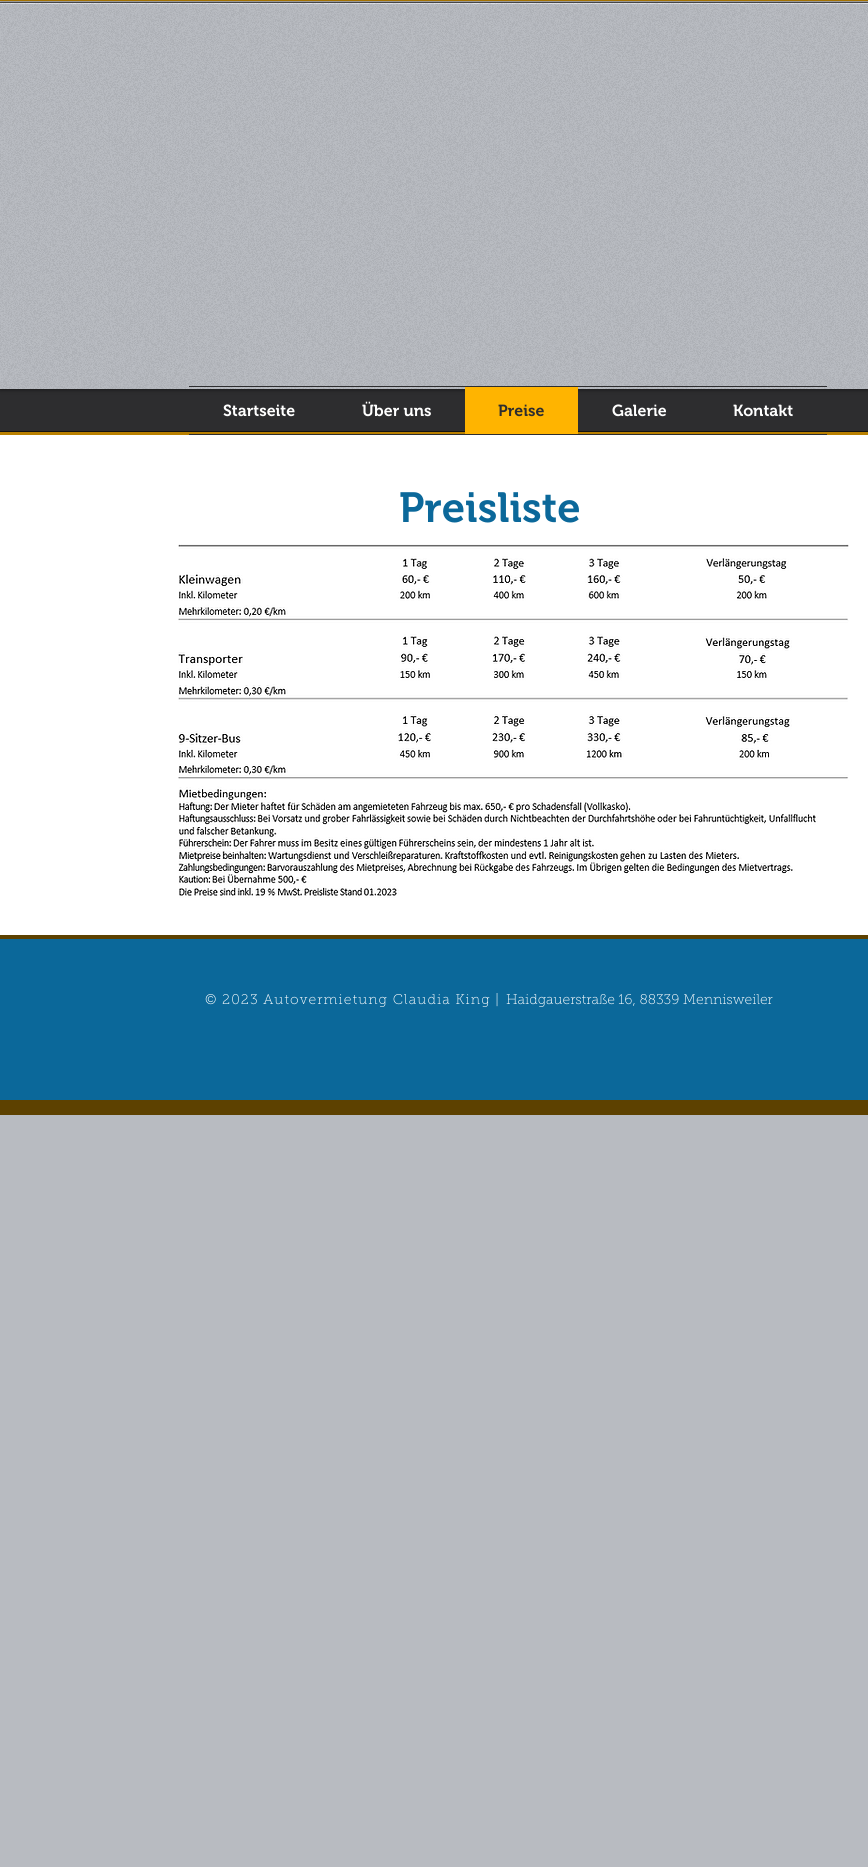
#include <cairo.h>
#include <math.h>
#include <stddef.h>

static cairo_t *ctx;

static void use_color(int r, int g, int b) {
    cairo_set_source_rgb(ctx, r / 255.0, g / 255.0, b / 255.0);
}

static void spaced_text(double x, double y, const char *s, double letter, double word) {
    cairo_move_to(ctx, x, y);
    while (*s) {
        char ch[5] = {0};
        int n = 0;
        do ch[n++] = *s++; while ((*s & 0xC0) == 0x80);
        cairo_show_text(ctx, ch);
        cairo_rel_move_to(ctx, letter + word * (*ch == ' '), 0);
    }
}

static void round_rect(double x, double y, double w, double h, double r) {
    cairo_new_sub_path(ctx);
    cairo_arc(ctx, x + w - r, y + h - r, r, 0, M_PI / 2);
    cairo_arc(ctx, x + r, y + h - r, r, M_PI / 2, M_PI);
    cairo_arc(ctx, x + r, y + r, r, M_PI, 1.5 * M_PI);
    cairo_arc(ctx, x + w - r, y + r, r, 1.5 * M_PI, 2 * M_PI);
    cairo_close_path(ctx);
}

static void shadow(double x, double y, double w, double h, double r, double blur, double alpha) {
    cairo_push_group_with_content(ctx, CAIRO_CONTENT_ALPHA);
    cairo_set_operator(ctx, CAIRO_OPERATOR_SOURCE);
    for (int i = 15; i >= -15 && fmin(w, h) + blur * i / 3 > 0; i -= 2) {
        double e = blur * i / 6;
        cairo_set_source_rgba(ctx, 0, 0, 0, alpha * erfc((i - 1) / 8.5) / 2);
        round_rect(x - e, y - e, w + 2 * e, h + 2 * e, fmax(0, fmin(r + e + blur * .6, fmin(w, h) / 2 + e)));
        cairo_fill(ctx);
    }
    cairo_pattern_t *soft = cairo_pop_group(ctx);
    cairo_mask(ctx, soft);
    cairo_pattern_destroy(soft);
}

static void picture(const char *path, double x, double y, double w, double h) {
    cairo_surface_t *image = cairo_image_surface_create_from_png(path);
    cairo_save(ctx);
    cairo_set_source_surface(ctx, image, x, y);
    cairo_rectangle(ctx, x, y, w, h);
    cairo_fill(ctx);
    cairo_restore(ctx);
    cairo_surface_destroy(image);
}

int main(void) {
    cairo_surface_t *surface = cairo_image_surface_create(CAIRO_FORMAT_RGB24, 868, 1867);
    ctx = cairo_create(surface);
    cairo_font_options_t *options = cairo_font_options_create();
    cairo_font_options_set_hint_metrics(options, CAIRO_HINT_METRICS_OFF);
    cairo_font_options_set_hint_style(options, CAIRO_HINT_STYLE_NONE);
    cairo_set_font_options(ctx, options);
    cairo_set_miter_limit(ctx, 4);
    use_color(184, 187, 193);
    cairo_paint(ctx);
    use_color(45, 45, 47);
    cairo_rectangle(ctx, 0, 2, 868, 429);
    cairo_fill(ctx);
    picture("img1.png", 0, 2, 868, 1);
    use_color(18, 18, 19);
    cairo_rectangle(ctx, 0, 431, 868, 1);
    cairo_fill(ctx);
    use_color(193, 193, 193);
    cairo_rectangle(ctx, 0, 1, 868, 1);
    cairo_fill(ctx);
    use_color(185, 128, 0);
    cairo_rectangle(ctx, 0, 0, 868, 1);
    cairo_fill(ctx);
    cairo_rectangle(ctx, 0, 432, 868, 3);
    cairo_fill(ctx);
    use_color(184, 187, 193);
    cairo_rectangle(ctx, 0, 4, 868, 385);
    cairo_fill(ctx);
    use_color(226, 227, 230);
    cairo_rectangle(ctx, 0, 3, 868, 1);
    cairo_fill(ctx);
    cairo_save(ctx);
    cairo_set_fill_rule(ctx, CAIRO_FILL_RULE_EVEN_ODD);
    cairo_new_path(ctx);
    cairo_move_to(ctx, 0, 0);
    cairo_line_to(ctx, 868, 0);
    cairo_line_to(ctx, 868, 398);
    cairo_line_to(ctx, 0, 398);
    cairo_close_path(ctx);
    cairo_move_to(ctx, 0, 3);
    cairo_line_to(ctx, 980, 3);
    cairo_line_to(ctx, 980, 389);
    cairo_line_to(ctx, 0, 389);
    cairo_close_path(ctx);
    cairo_clip(ctx);
    use_color(0, 0, 0);
    shadow(0, 3, 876, 386, 0, 2.5, 0.7);
    cairo_restore(ctx);
    picture("img2.png", 0, 3, 868, 386);
    use_color(45, 45, 47);
    cairo_rectangle(ctx, 189, 386, 638, 1);
    cairo_fill(ctx);
    cairo_rectangle(ctx, 189, 434, 638, 1);
    cairo_fill(ctx);
    cairo_select_font_face(ctx, "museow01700 SemiBold", CAIRO_FONT_SLANT_NORMAL, CAIRO_FONT_WEIGHT_NORMAL);
    cairo_set_font_size(ctx, 16);
    use_color(255, 255, 255);
    cairo_move_to(ctx, 223, 416);
    cairo_show_text(ctx, "Startseite");
    cairo_move_to(ctx, 362, 416);
    cairo_show_text(ctx, "Über uns");
    use_color(255, 180, 0);
    cairo_rectangle(ctx, 465, 387, 113, 47);
    cairo_fill(ctx);
    use_color(45, 45, 47);
    cairo_move_to(ctx, 498, 416);
    cairo_show_text(ctx, "Preise");
    use_color(255, 255, 255);
    cairo_move_to(ctx, 612, 416);
    cairo_show_text(ctx, "Galerie");
    cairo_move_to(ctx, 733, 416);
    cairo_show_text(ctx, "Kontakt");
    cairo_rectangle(ctx, 0, 435, 868, 500);
    cairo_fill(ctx);
    cairo_set_font_size(ctx, 42);
    use_color(11, 104, 154);
    cairo_move_to(ctx, 399, 522);
    cairo_show_text(ctx, "Preisliste");
    picture("img3.png", 178, 544, 671, 354);
    cairo_rectangle(ctx, 0, 939, 868, 161);
    cairo_fill(ctx);
    use_color(93, 65, 0);
    cairo_rectangle(ctx, 0, 935, 868, 4);
    cairo_fill(ctx);
    cairo_rectangle(ctx, 0, 1100, 868, 15);
    cairo_fill(ctx);
    cairo_select_font_face(ctx, "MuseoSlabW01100 Thin", CAIRO_FONT_SLANT_NORMAL, CAIRO_FONT_WEIGHT_NORMAL);
    cairo_set_font_size(ctx, 14);
    use_color(255, 255, 255);
    spaced_text(205, 1004, "© 2023 Autovermietung Claudia King |", 1.1, 0);
    cairo_move_to(ctx, 506, 1004);
    cairo_show_text(ctx, "Haidgauerstraße 16, 88339 Mennisweiler");
    cairo_surface_write_to_png(surface, "result.png");
    cairo_font_options_destroy(options);
    cairo_destroy(ctx);
    cairo_surface_destroy(surface);
    return 0;
}
